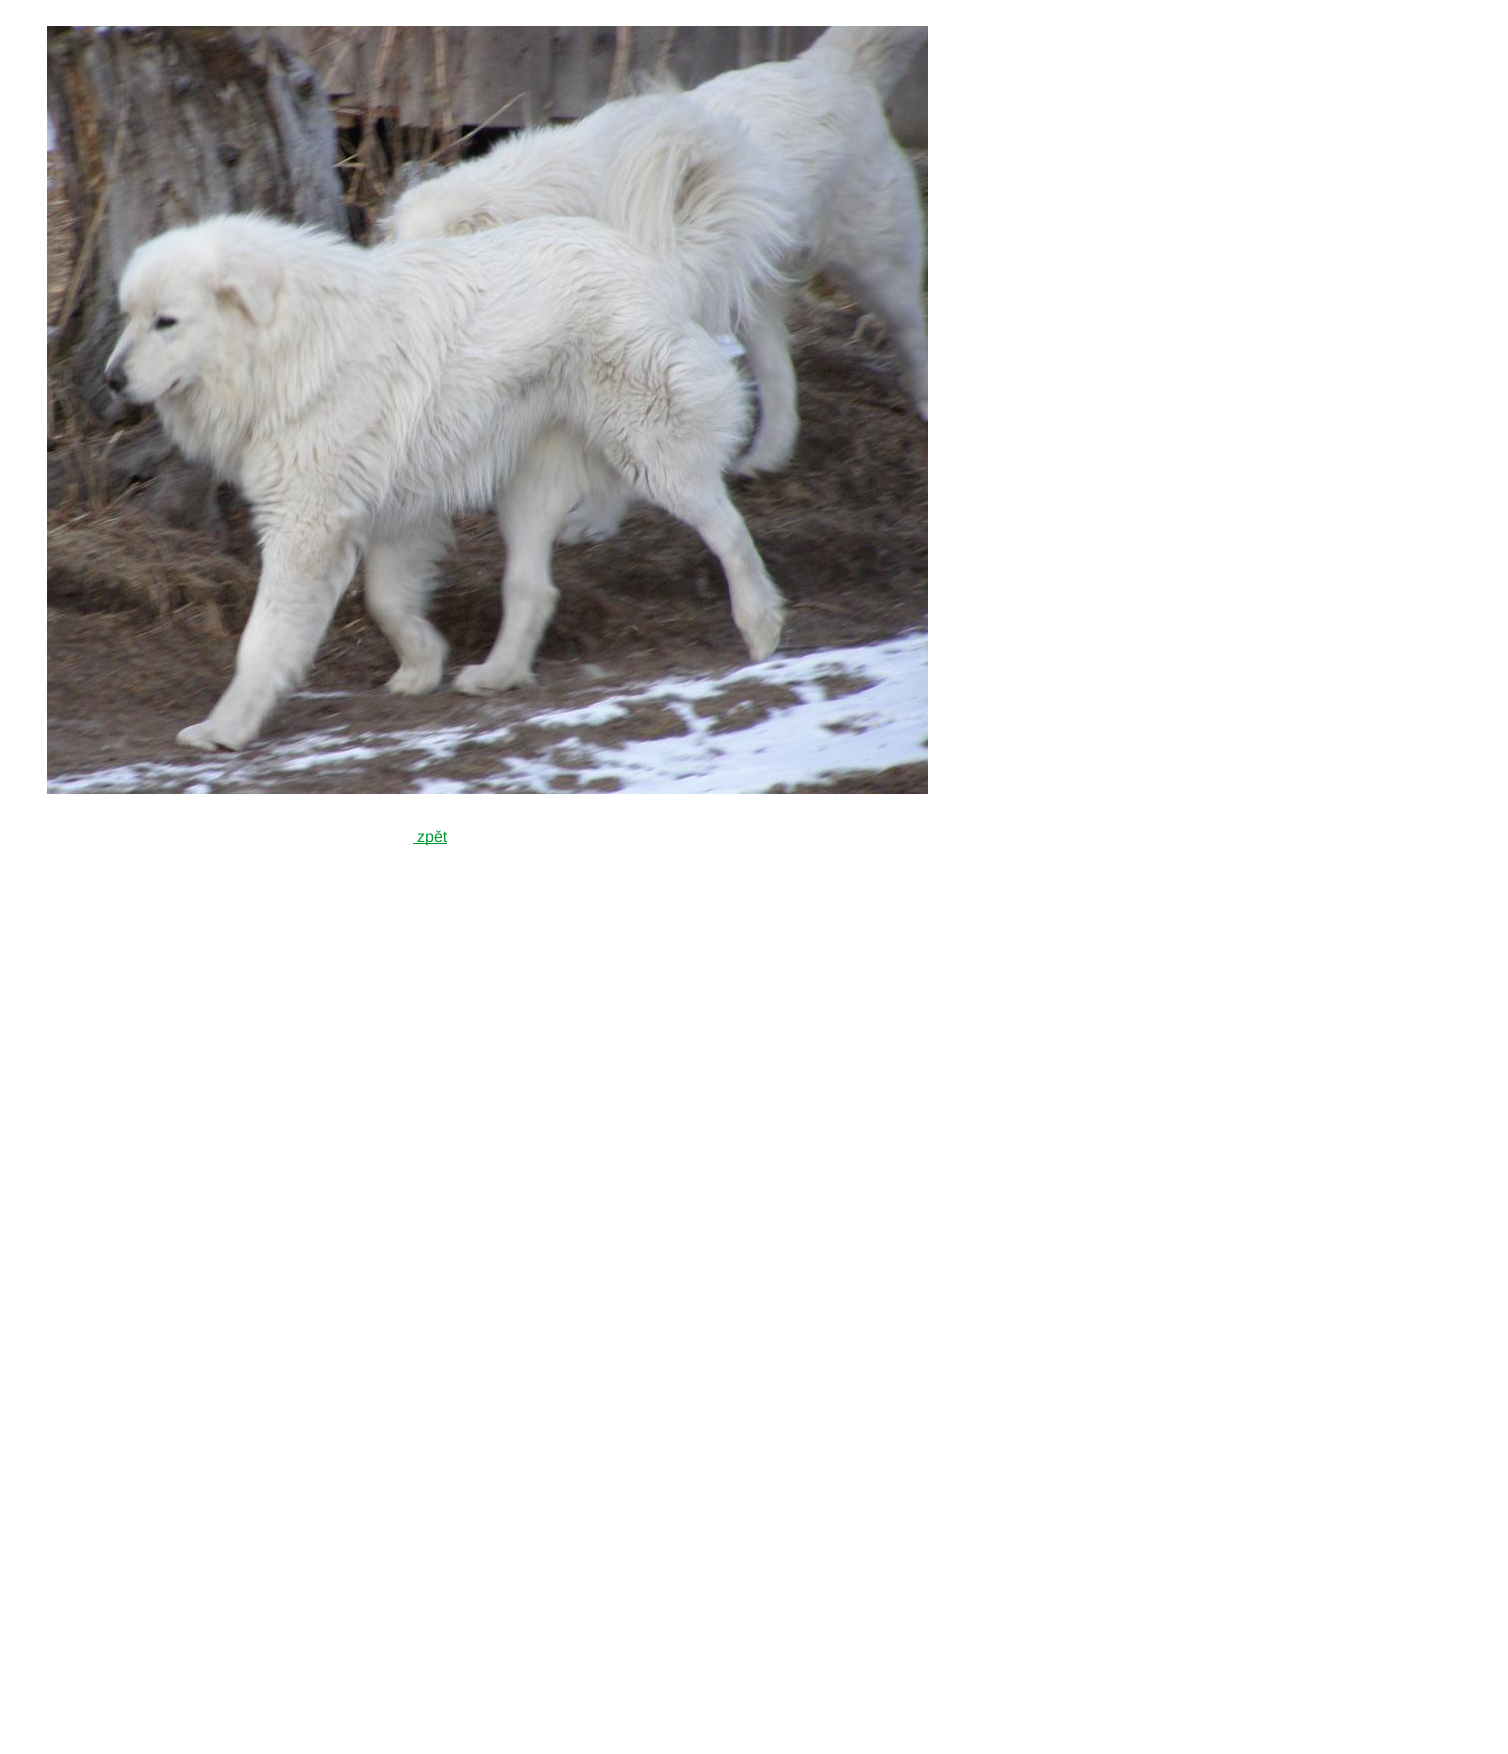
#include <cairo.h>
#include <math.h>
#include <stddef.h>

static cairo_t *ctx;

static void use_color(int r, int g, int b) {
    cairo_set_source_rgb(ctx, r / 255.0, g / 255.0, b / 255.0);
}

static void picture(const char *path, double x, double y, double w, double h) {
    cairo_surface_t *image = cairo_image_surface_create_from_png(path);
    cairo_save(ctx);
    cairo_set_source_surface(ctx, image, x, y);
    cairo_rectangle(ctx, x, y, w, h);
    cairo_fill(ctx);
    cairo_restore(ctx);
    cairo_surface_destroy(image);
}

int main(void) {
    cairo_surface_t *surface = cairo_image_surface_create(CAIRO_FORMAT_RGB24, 1508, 1754);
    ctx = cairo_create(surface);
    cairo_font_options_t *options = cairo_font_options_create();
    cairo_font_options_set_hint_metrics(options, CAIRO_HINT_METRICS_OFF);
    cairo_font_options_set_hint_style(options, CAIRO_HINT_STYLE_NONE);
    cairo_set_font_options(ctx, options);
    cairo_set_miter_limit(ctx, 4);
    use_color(255, 255, 255);
    cairo_paint(ctx);
    picture("img1.png", 47, 26, 881, 768);
    use_color(0, 153, 51);
    cairo_rectangle(ctx, 413, 843, 34, 1);
    cairo_fill(ctx);
    cairo_select_font_face(ctx, "Liberation Sans", CAIRO_FONT_SLANT_NORMAL, CAIRO_FONT_WEIGHT_NORMAL);
    cairo_set_font_size(ctx, 16);
    cairo_move_to(ctx, 417, 842);
    cairo_show_text(ctx, "zpět");
    cairo_surface_write_to_png(surface, "result.png");
    cairo_font_options_destroy(options);
    cairo_destroy(ctx);
    cairo_surface_destroy(surface);
    return 0;
}
